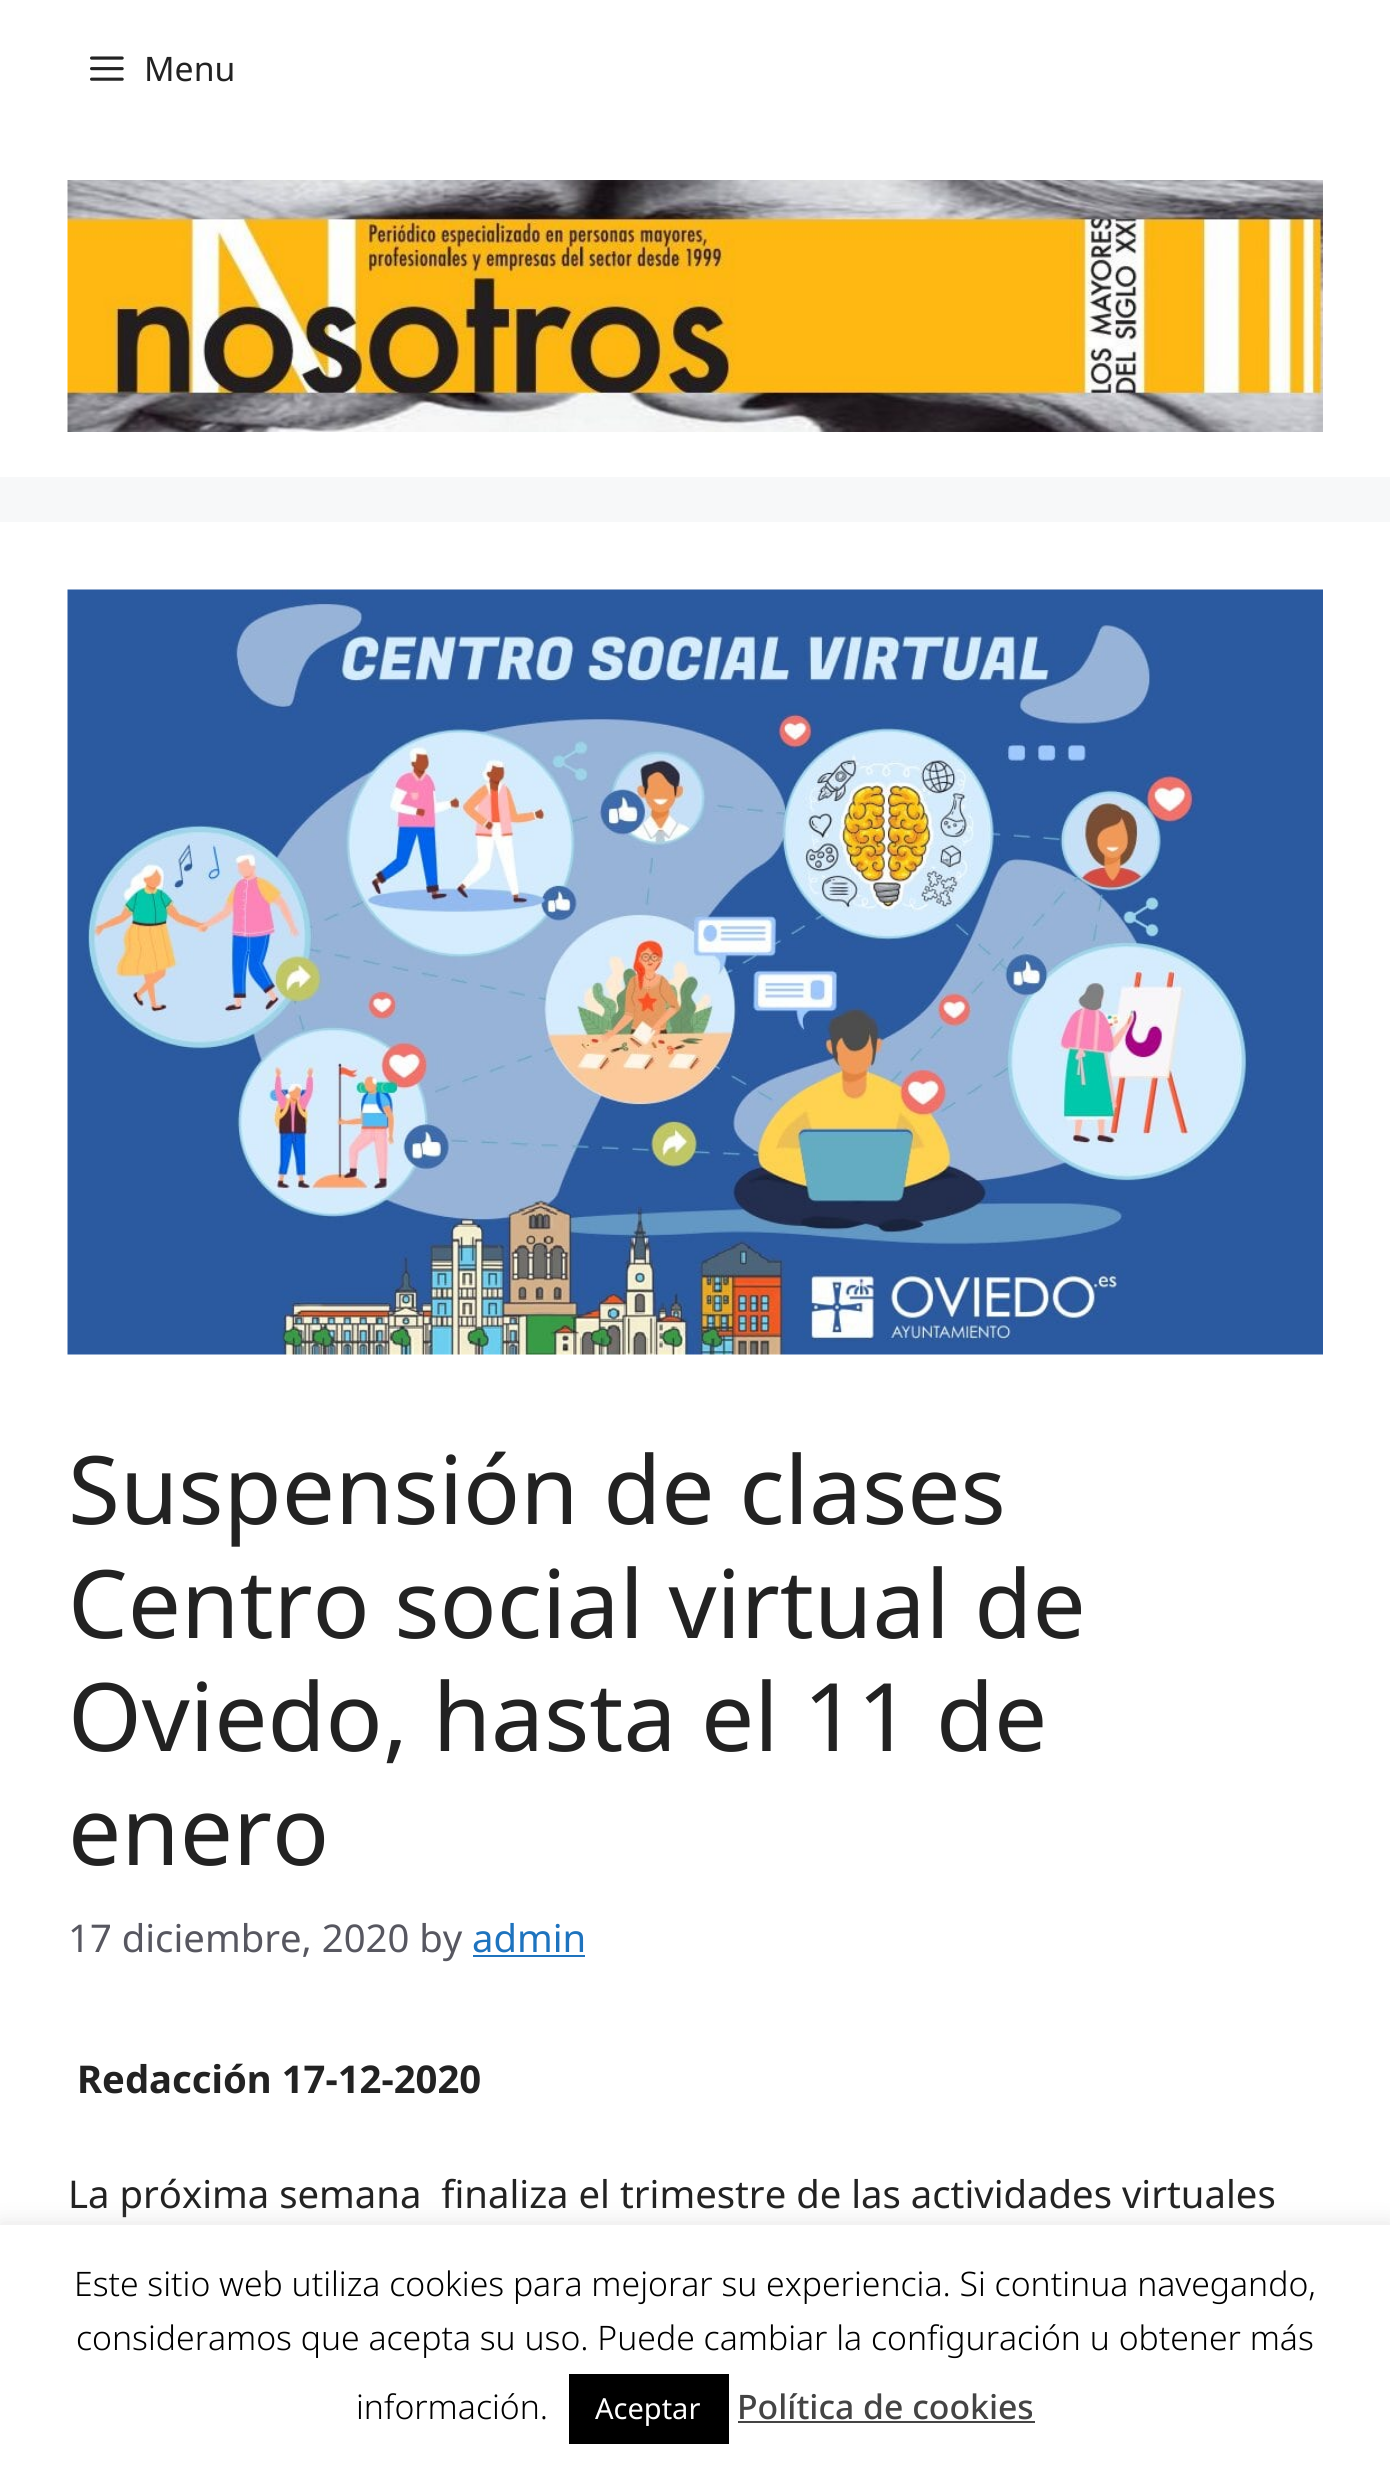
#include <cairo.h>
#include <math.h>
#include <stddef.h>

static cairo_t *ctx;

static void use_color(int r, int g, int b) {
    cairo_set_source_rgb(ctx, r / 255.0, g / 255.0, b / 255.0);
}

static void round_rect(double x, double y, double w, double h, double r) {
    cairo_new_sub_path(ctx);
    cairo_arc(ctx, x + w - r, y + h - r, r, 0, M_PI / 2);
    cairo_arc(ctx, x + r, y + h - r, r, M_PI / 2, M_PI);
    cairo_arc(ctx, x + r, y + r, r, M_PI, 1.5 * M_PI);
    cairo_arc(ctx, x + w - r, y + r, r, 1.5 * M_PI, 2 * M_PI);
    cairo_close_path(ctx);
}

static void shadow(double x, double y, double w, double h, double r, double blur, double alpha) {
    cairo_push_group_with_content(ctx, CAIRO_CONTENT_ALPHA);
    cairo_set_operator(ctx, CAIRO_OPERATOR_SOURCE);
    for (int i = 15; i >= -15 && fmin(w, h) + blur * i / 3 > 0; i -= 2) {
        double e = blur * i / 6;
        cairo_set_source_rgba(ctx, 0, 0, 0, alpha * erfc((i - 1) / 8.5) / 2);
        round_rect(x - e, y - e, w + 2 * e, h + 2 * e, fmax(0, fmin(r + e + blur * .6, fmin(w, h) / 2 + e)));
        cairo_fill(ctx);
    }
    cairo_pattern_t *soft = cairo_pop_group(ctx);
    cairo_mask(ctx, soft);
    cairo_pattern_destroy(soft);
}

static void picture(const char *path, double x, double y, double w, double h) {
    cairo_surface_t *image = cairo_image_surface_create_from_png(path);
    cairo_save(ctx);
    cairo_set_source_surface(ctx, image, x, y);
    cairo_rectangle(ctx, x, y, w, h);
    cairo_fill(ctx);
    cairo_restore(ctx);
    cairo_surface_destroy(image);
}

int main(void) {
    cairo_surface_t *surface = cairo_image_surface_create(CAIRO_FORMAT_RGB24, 1390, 2469);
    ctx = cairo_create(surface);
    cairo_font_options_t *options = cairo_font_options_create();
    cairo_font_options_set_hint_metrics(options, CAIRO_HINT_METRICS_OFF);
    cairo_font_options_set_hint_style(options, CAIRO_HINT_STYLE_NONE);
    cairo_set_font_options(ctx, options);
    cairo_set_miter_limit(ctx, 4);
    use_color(247, 248, 249);
    cairo_paint(ctx);
    use_color(255, 255, 255);
    cairo_rectangle(ctx, 0, 0, 1390, 477);
    cairo_fill(ctx);
    picture("img1.png", 90, 56, 34, 25);
    cairo_select_font_face(ctx, "Noto Sans", CAIRO_FONT_SLANT_NORMAL, CAIRO_FONT_WEIGHT_NORMAL);
    cairo_set_font_size(ctx, 33.75);
    use_color(34, 34, 34);
    cairo_move_to(ctx, 144, 81);
    cairo_show_text(ctx, "Menu");
    picture("img2.png", 67, 180, 1256, 252);
    use_color(255, 255, 255);
    cairo_rectangle(ctx, 0, 522, 1390, 1703);
    cairo_fill(ctx);
    picture("img3.png", 67, 589, 1256, 766);
    cairo_set_font_size(ctx, 94.5);
    use_color(34, 34, 34);
    cairo_move_to(ctx, 68, 1524);
    cairo_show_text(ctx, "Suspensión de clases");
    cairo_move_to(ctx, 68, 1638);
    cairo_show_text(ctx, "Centro social virtual de");
    cairo_move_to(ctx, 68, 1751);
    cairo_show_text(ctx, "Oviedo, hasta el 11 de");
    cairo_move_to(ctx, 68, 1865);
    cairo_show_text(ctx, "enero");
    cairo_set_font_size(ctx, 38.25);
    use_color(87, 87, 96);
    cairo_move_to(ctx, 68, 1952);
    cairo_show_text(ctx, "17 diciembre, 2020 by");
    use_color(30, 115, 190);
    cairo_move_to(ctx, 472, 1952);
    cairo_show_text(ctx, "admin");
    cairo_rectangle(ctx, 473, 1955, 112, 2);
    cairo_fill(ctx);
    cairo_select_font_face(ctx, "Noto Sans", CAIRO_FONT_SLANT_NORMAL, CAIRO_FONT_WEIGHT_BOLD);
    use_color(34, 34, 34);
    cairo_move_to(ctx, 77, 2093);
    cairo_show_text(ctx, "Redacción 17-12-2020");
    cairo_select_font_face(ctx, "Noto Sans", CAIRO_FONT_SLANT_NORMAL, CAIRO_FONT_WEIGHT_NORMAL);
    cairo_move_to(ctx, 68, 2208);
    cairo_show_text(ctx, "La próxima semana  finaliza el trimestre de las actividades virtuales");
    use_color(172, 171, 171);
    shadow(0, 2223, 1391, 245, 0, 11, 0.3);
    use_color(255, 255, 255);
    cairo_rectangle(ctx, 0, 2225, 1390, 244);
    cairo_fill(ctx);
    cairo_select_font_face(ctx, "Noto Sans Light", CAIRO_FONT_SLANT_NORMAL, CAIRO_FONT_WEIGHT_NORMAL);
    cairo_set_font_size(ctx, 33.75);
    use_color(0, 0, 0);
    cairo_move_to(ctx, 74, 2296);
    cairo_show_text(ctx, "Este sitio web utiliza cookies para mejorar su experiencia. Si continua navegando,");
    cairo_move_to(ctx, 76, 2350);
    cairo_show_text(ctx, "consideramos que acepta su uso. Puede cambiar la configuración u obtener más");
    cairo_move_to(ctx, 356, 2419);
    cairo_show_text(ctx, "información.");
    cairo_rectangle(ctx, 569, 2374, 160, 70);
    cairo_fill(ctx);
    cairo_select_font_face(ctx, "Noto Sans", CAIRO_FONT_SLANT_NORMAL, CAIRO_FONT_WEIGHT_NORMAL);
    cairo_set_font_size(ctx, 29);
    use_color(255, 255, 255);
    cairo_move_to(ctx, 595, 2419);
    cairo_show_text(ctx, "Aceptar");
    cairo_select_font_face(ctx, "Noto Sans Medium", CAIRO_FONT_SLANT_NORMAL, CAIRO_FONT_WEIGHT_NORMAL);
    cairo_set_font_size(ctx, 33.75);
    use_color(68, 68, 68);
    cairo_move_to(ctx, 737, 2419);
    cairo_show_text(ctx, "Política de cookies");
    cairo_rectangle(ctx, 738, 2421, 297, 2);
    cairo_fill(ctx);
    cairo_surface_write_to_png(surface, "result.png");
    cairo_font_options_destroy(options);
    cairo_destroy(ctx);
    cairo_surface_destroy(surface);
    return 0;
}
